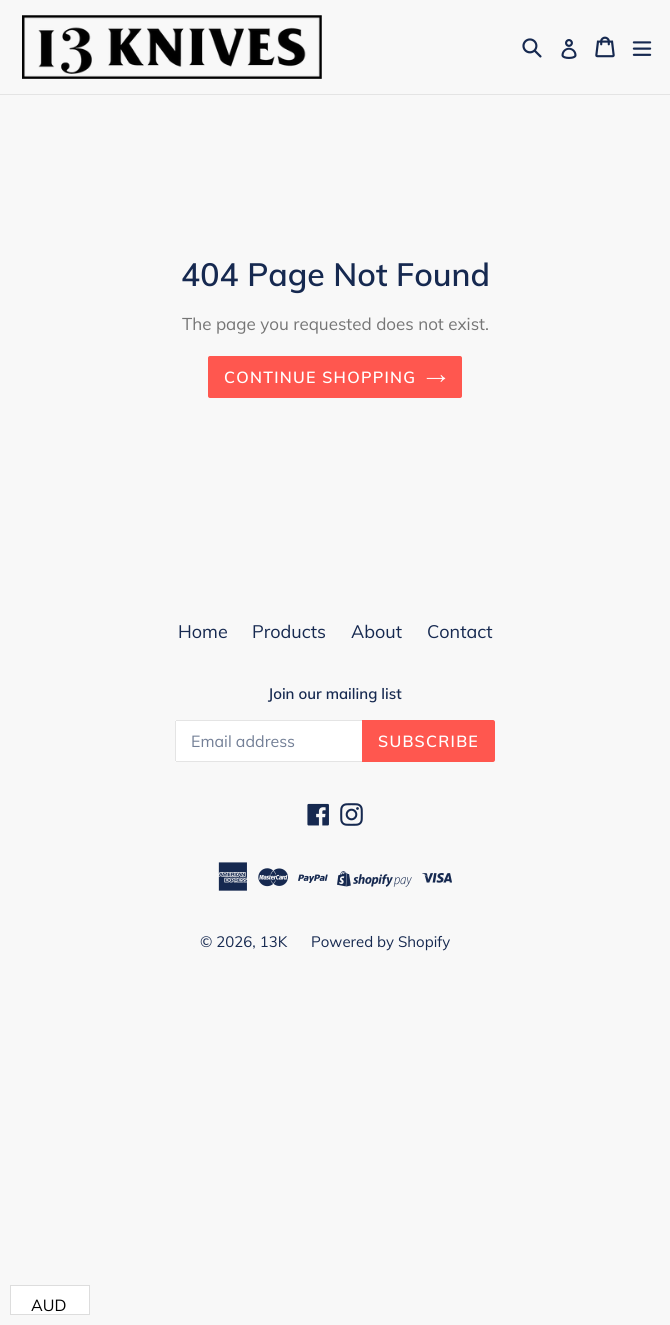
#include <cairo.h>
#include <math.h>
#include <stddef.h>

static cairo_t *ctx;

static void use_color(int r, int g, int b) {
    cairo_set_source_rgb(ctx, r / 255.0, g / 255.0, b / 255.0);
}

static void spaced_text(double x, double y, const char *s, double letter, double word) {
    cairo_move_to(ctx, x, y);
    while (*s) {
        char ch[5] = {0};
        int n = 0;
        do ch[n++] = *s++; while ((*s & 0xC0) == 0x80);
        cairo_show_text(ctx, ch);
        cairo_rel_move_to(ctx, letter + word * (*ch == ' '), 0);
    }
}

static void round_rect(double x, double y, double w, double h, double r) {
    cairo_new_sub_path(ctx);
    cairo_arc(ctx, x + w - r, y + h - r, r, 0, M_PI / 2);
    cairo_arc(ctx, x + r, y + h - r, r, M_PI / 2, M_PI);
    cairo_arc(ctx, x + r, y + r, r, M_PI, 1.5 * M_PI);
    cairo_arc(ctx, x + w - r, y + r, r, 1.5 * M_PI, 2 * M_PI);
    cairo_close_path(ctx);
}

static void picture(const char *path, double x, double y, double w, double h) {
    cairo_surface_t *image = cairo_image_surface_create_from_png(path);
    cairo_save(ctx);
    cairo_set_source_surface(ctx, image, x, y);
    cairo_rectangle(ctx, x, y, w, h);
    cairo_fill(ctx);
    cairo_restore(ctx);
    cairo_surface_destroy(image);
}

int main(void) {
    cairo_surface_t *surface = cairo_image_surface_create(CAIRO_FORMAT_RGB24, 670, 1325);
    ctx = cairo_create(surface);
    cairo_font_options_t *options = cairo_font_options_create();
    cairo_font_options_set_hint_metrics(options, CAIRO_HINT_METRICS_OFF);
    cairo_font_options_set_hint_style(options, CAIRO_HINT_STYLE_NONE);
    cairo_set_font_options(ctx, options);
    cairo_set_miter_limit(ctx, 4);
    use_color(248, 248, 248);
    cairo_paint(ctx);
    use_color(228, 228, 228);
    cairo_rectangle(ctx, 0, 94, 670, 1);
    cairo_fill(ctx);
    picture("img1.png", 22, 15, 300, 64);
    picture("img2.png", 522, 38, 20, 20);
    picture("img3.png", 561, 39, 16, 20);
    picture("img4.png", 595, 36, 20, 22);
    picture("img5.png", 632, 41, 20, 15);
    cairo_select_font_face(ctx, "Muli SemiBold", CAIRO_FONT_SLANT_NORMAL, CAIRO_FONT_WEIGHT_NORMAL);
    cairo_set_font_size(ctx, 32);
    use_color(22, 41, 80);
    cairo_move_to(ctx, 181, 286);
    cairo_show_text(ctx, "404 Page Not Found");
    cairo_select_font_face(ctx, "Muli", CAIRO_FONT_SLANT_NORMAL, CAIRO_FONT_WEIGHT_NORMAL);
    cairo_set_font_size(ctx, 17);
    use_color(117, 117, 117);
    cairo_move_to(ctx, 182, 330);
    cairo_show_text(ctx, "The page you requested does not exist.");
    use_color(255, 87, 79);
    round_rect(208, 356, 254, 42, 2);
    cairo_fill(ctx);
    cairo_select_font_face(ctx, "Muli SemiBold", CAIRO_FONT_SLANT_NORMAL, CAIRO_FONT_WEIGHT_NORMAL);
    cairo_set_font_size(ctx, 16);
    use_color(255, 255, 255);
    spaced_text(224, 383, "CONTINUE SHOPPING", 1.25, 0);
    picture("img6.png", 426, 374, 20, 8);
    cairo_select_font_face(ctx, "Muli", CAIRO_FONT_SLANT_NORMAL, CAIRO_FONT_WEIGHT_NORMAL);
    cairo_set_font_size(ctx, 18);
    use_color(22, 41, 80);
    cairo_move_to(ctx, 178, 638);
    cairo_show_text(ctx, "Home");
    cairo_move_to(ctx, 252, 638);
    cairo_show_text(ctx, "Products");
    cairo_move_to(ctx, 351, 638);
    cairo_show_text(ctx, "About");
    cairo_move_to(ctx, 427, 638);
    cairo_show_text(ctx, "Contact");
    cairo_select_font_face(ctx, "Muli SemiBold", CAIRO_FONT_SLANT_NORMAL, CAIRO_FONT_WEIGHT_NORMAL);
    cairo_set_font_size(ctx, 15);
    cairo_move_to(ctx, 268, 699);
    cairo_show_text(ctx, "Join our mailing list");
    use_color(255, 255, 255);
    cairo_new_path(ctx);
    cairo_move_to(ctx, 177, 720);
    cairo_line_to(ctx, 362, 720);
    cairo_line_to(ctx, 362, 762);
    cairo_line_to(ctx, 177, 762);
    cairo_curve_to(ctx, 176, 762, 175, 761, 175, 760);
    cairo_line_to(ctx, 175, 722);
    cairo_curve_to(ctx, 175, 721, 176, 720, 177, 720);
    cairo_close_path(ctx);
    cairo_fill(ctx);
    use_color(228, 228, 228);
    cairo_rectangle(ctx, 176, 720, 186, 1);
    cairo_fill(ctx);
    cairo_rectangle(ctx, 176, 761, 186, 1);
    cairo_fill(ctx);
    cairo_rectangle(ctx, 175, 721, 1, 40);
    cairo_fill(ctx);
    cairo_select_font_face(ctx, "Muli", CAIRO_FONT_SLANT_NORMAL, CAIRO_FONT_WEIGHT_NORMAL);
    cairo_set_font_size(ctx, 16);
    use_color(115, 127, 150);
    cairo_move_to(ctx, 191, 747);
    cairo_show_text(ctx, "Email address");
    use_color(255, 87, 79);
    cairo_new_path(ctx);
    cairo_move_to(ctx, 362, 720);
    cairo_line_to(ctx, 493, 720);
    cairo_curve_to(ctx, 494, 720, 495, 721, 495, 722);
    cairo_line_to(ctx, 495, 760);
    cairo_curve_to(ctx, 495, 761, 494, 762, 493, 762);
    cairo_line_to(ctx, 362, 762);
    cairo_close_path(ctx);
    cairo_fill(ctx);
    cairo_select_font_face(ctx, "Muli SemiBold", CAIRO_FONT_SLANT_NORMAL, CAIRO_FONT_WEIGHT_NORMAL);
    use_color(255, 255, 255);
    spaced_text(378, 747, "SUBSCRIBE", 1.25, 0);
    picture("img7.png", 307, 803, 22, 23);
    picture("img8.png", 340, 803, 23, 23);
    picture("img9.png", 218, 862, 30, 29);
    picture("img10.png", 258, 868, 30, 19);
    picture("img11.png", 298, 874, 30, 9);
    picture("img12.png", 337, 871, 75, 16);
    picture("img13.png", 422, 873, 30, 10);
    cairo_select_font_face(ctx, "Muli", CAIRO_FONT_SLANT_NORMAL, CAIRO_FONT_WEIGHT_NORMAL);
    cairo_set_font_size(ctx, 15);
    use_color(22, 41, 80);
    cairo_move_to(ctx, 200, 947);
    cairo_show_text(ctx, "© 2026, 13K");
    cairo_move_to(ctx, 311, 947);
    cairo_show_text(ctx, "Powered by Shopify");
    use_color(255, 255, 255);
    cairo_rectangle(ctx, 10.5, 1285.5, 79, 29);
    cairo_fill_preserve(ctx);
    use_color(221, 221, 221);
    cairo_set_line_width(ctx, 1);
    cairo_stroke(ctx);
    cairo_set_font_size(ctx, 16);
    use_color(0, 0, 0);
    cairo_move_to(ctx, 31, 1311);
    cairo_show_text(ctx, "AUD");
    cairo_surface_write_to_png(surface, "result.png");
    cairo_font_options_destroy(options);
    cairo_destroy(ctx);
    cairo_surface_destroy(surface);
    return 0;
}
